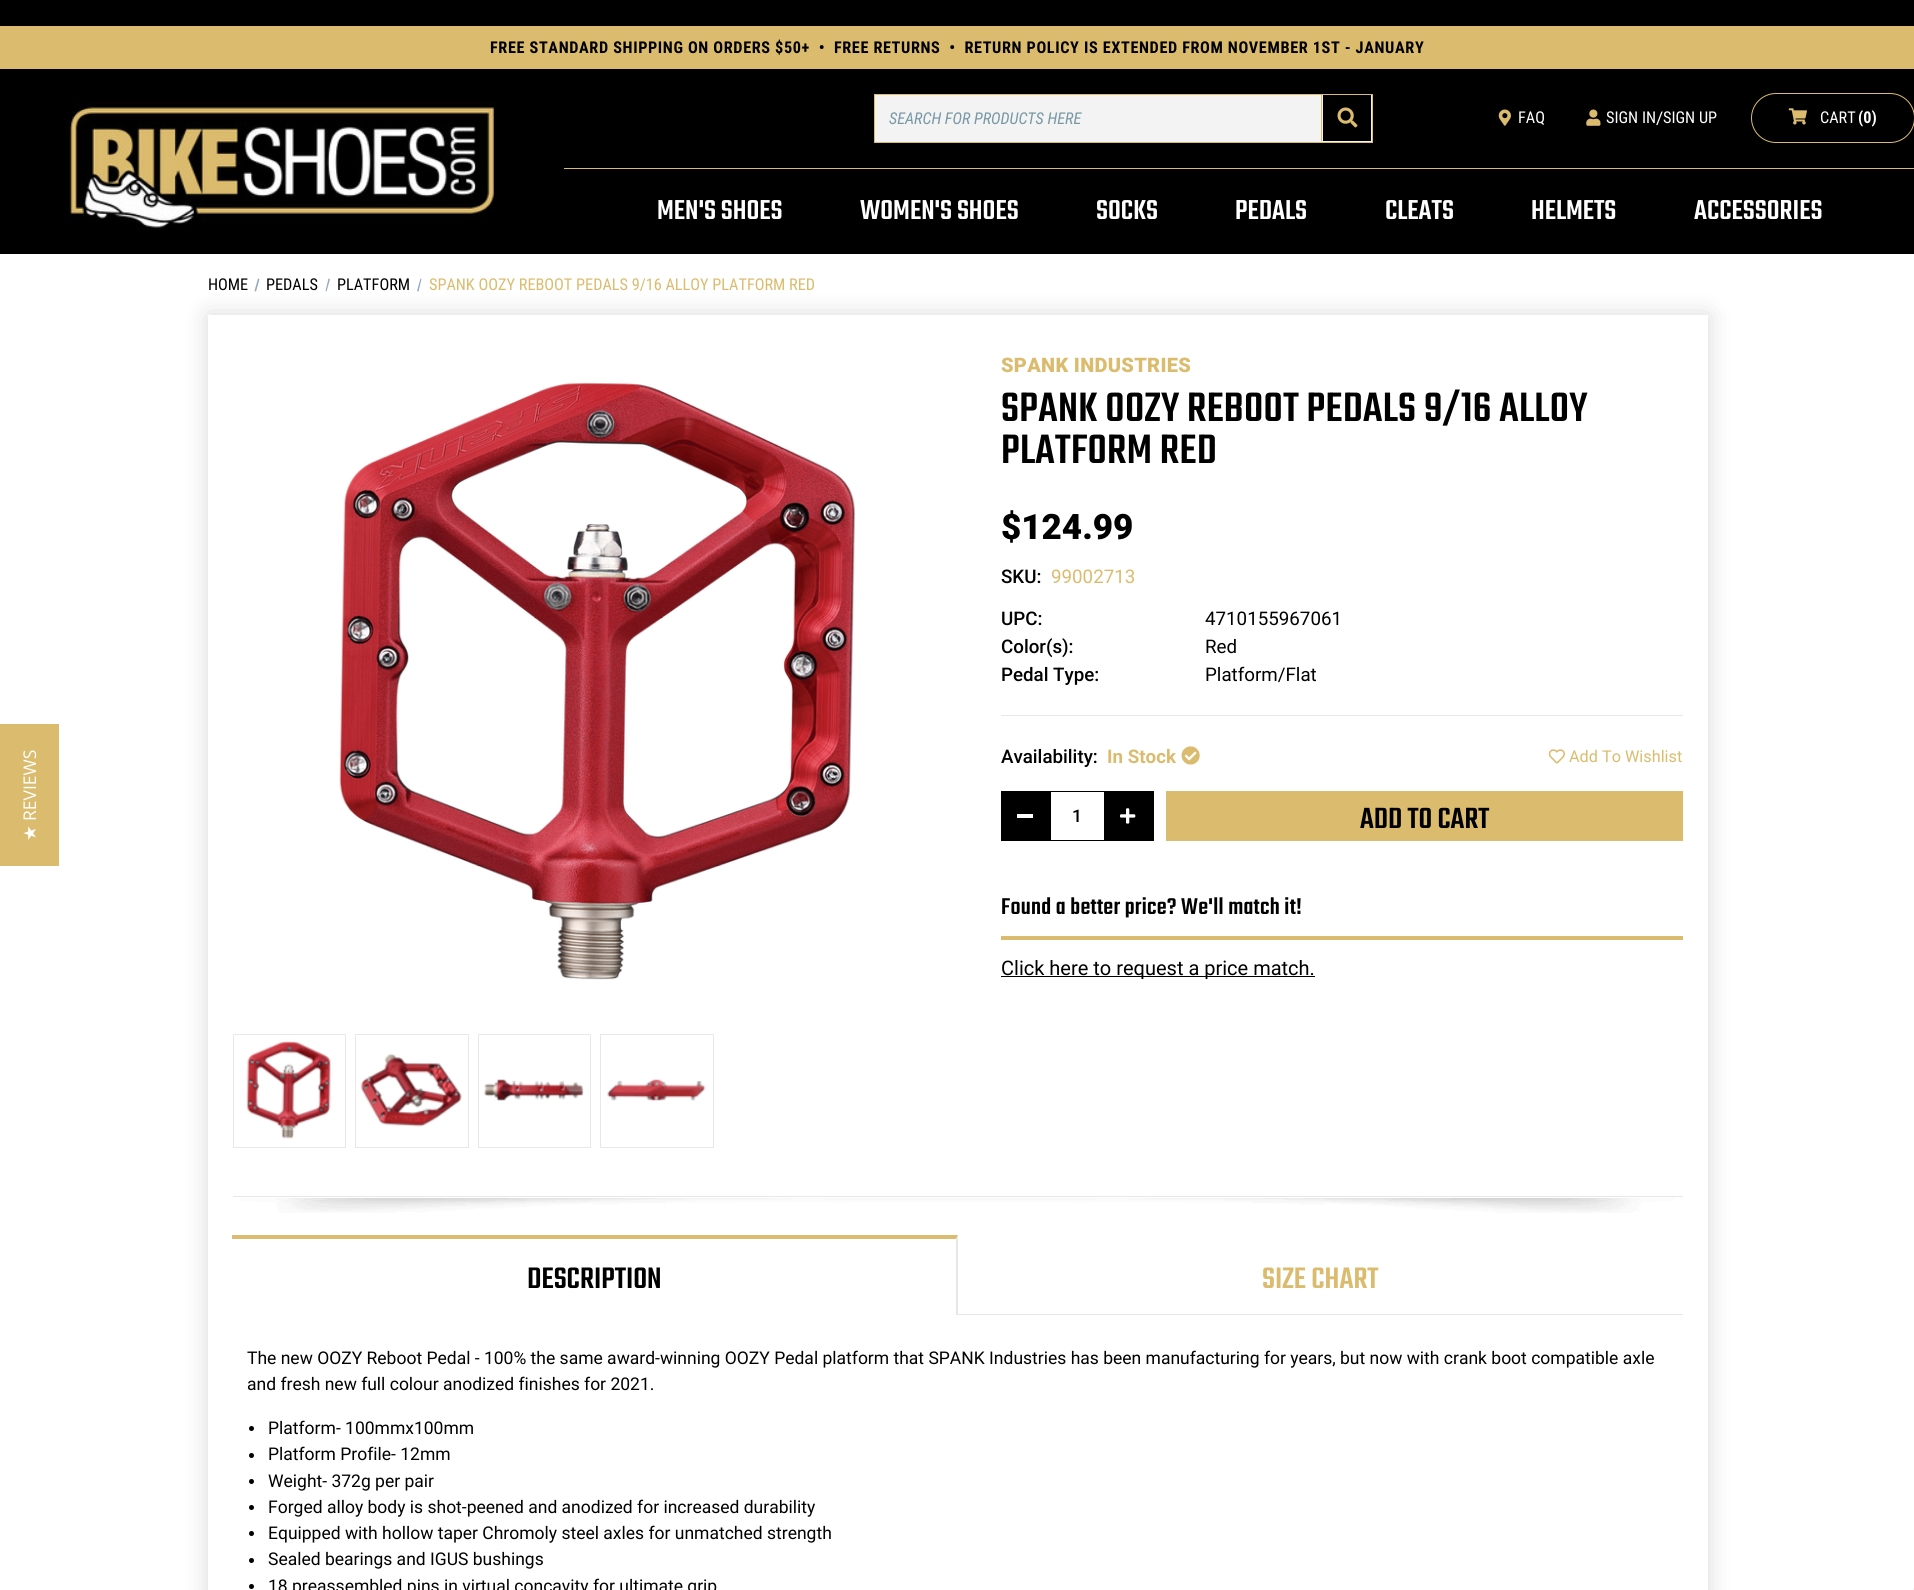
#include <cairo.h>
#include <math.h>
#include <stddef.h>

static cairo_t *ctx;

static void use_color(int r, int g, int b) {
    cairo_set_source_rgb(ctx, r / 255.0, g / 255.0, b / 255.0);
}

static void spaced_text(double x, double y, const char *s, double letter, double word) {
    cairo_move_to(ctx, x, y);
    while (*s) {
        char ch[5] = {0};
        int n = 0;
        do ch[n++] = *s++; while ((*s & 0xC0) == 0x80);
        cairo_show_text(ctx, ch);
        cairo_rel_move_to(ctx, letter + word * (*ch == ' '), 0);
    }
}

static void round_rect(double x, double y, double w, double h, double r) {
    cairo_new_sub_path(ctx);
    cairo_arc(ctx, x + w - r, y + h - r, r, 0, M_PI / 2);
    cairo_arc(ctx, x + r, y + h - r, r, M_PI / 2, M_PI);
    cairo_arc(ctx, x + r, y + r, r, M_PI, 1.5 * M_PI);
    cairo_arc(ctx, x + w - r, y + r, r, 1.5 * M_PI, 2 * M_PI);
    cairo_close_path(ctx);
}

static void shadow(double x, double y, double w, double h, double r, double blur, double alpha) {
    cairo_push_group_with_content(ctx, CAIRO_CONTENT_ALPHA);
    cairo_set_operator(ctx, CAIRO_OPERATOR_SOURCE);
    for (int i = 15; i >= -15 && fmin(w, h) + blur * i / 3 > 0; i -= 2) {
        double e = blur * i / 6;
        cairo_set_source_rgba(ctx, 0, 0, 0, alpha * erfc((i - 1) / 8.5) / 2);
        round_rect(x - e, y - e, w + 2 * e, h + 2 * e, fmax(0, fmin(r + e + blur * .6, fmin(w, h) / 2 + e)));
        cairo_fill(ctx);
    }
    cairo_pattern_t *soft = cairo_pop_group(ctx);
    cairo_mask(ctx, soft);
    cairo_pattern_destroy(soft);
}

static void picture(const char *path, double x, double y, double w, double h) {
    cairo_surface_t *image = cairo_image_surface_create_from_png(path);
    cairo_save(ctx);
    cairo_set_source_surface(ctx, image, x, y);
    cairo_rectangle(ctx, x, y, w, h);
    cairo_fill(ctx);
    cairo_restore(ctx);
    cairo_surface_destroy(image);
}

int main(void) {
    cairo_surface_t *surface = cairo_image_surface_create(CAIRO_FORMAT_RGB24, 1914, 1590);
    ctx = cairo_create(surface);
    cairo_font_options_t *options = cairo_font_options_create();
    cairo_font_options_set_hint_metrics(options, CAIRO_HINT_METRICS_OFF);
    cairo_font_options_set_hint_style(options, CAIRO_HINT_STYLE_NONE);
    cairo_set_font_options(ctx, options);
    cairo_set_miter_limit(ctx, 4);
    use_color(255, 255, 255);
    cairo_paint(ctx);
    use_color(219, 188, 110);
    cairo_rectangle(ctx, 0, 724, 59, 142);
    cairo_fill(ctx);
    cairo_select_font_face(ctx, "Open Sans", CAIRO_FONT_SLANT_NORMAL, CAIRO_FONT_WEIGHT_NORMAL);
    cairo_set_font_size(ctx, 17.5);
    use_color(255, 255, 255);
    cairo_save(ctx);
    cairo_translate(ctx, 36, 821);
    cairo_rotate(ctx, -90 * M_PI / 180);
    cairo_move_to(ctx, 0, 0);
    cairo_show_text(ctx, "REVIEWS");
    cairo_restore(ctx);
    cairo_select_font_face(ctx, "DejaVu Sans", CAIRO_FONT_SLANT_NORMAL, CAIRO_FONT_WEIGHT_NORMAL);
    cairo_save(ctx);
    cairo_translate(ctx, 36, 841);
    cairo_rotate(ctx, -90 * M_PI / 180);
    cairo_move_to(ctx, 0, 0);
    cairo_show_text(ctx, "★");
    cairo_restore(ctx);
    use_color(0, 0, 0);
    cairo_rectangle(ctx, 0, 0, 1914, 254);
    cairo_fill(ctx);
    use_color(219, 187, 110);
    cairo_rectangle(ctx, 0, 26, 1914, 43);
    cairo_fill(ctx);
    cairo_select_font_face(ctx, "Roboto Condensed", CAIRO_FONT_SLANT_NORMAL, CAIRO_FONT_WEIGHT_BOLD);
    cairo_set_font_size(ctx, 16.25);
    use_color(0, 0, 0);
    spaced_text(490, 53, "FREE STANDARD SHIPPING ON ORDERS $50+  •  FREE RETURNS  •  RETURN POLICY IS EXTENDED FROM NOVEMBER 1ST - JANUARY", 0.62, 0);
    picture("img1.png", 65, 102, 430, 128);
    use_color(219, 187, 110);
    cairo_rectangle(ctx, 564, 168, 1350, 1);
    cairo_fill(ctx);
    use_color(243, 243, 243);
    cairo_rectangle(ctx, 874.5, 94.5, 498, 48);
    cairo_fill_preserve(ctx);
    use_color(219, 187, 110);
    cairo_set_line_width(ctx, 1);
    cairo_stroke(ctx);
    cairo_rectangle(ctx, 1321, 95, 1, 46);
    cairo_fill(ctx);
    cairo_select_font_face(ctx, "Roboto Condensed", CAIRO_FONT_SLANT_ITALIC, CAIRO_FONT_WEIGHT_NORMAL);
    use_color(119, 152, 165);
    cairo_move_to(ctx, 889, 124);
    cairo_show_text(ctx, "SEARCH FOR PRODUCTS HERE");
    use_color(0, 0, 0);
    cairo_rectangle(ctx, 1323, 95, 48, 46);
    cairo_fill(ctx);
    picture("img2.png", 1337, 107, 21, 21);
    picture("img3.png", 1498, 109, 13, 17);
    cairo_select_font_face(ctx, "Roboto Condensed", CAIRO_FONT_SLANT_NORMAL, CAIRO_FONT_WEIGHT_NORMAL);
    use_color(255, 255, 255);
    cairo_move_to(ctx, 1518, 123);
    cairo_show_text(ctx, "FAQ");
    picture("img4.png", 1586, 109, 15, 17);
    cairo_move_to(ctx, 1606, 123);
    cairo_show_text(ctx, "SIGN IN");
    cairo_select_font_face(ctx, "Roboto", CAIRO_FONT_SLANT_NORMAL, CAIRO_FONT_WEIGHT_NORMAL);
    cairo_set_font_size(ctx, 17.5);
    cairo_move_to(ctx, 1656, 124);
    cairo_show_text(ctx, "/");
    cairo_select_font_face(ctx, "Roboto Condensed", CAIRO_FONT_SLANT_NORMAL, CAIRO_FONT_WEIGHT_NORMAL);
    cairo_set_font_size(ctx, 16.25);
    cairo_move_to(ctx, 1663, 123);
    cairo_show_text(ctx, "SIGN UP");
    round_rect(1751.5, 93.5, 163, 49, 24.5);
    use_color(219, 187, 110);
    cairo_stroke(ctx);
    picture("img5.png", 1788, 108, 19, 17);
    use_color(255, 255, 255);
    cairo_move_to(ctx, 1820, 123);
    cairo_show_text(ctx, "CART");
    cairo_select_font_face(ctx, "Roboto Condensed", CAIRO_FONT_SLANT_NORMAL, CAIRO_FONT_WEIGHT_BOLD);
    cairo_move_to(ctx, 1858, 123);
    cairo_show_text(ctx, "(0)");
    cairo_select_font_face(ctx, "Teko Medium", CAIRO_FONT_SLANT_NORMAL, CAIRO_FONT_WEIGHT_NORMAL);
    cairo_set_font_size(ctx, 30);
    cairo_move_to(ctx, 657, 219);
    cairo_show_text(ctx, "MEN'S SHOES");
    cairo_move_to(ctx, 860, 219);
    cairo_show_text(ctx, "WOMEN'S SHOES");
    cairo_move_to(ctx, 1096, 219);
    cairo_show_text(ctx, "SOCKS");
    cairo_move_to(ctx, 1235, 219);
    cairo_show_text(ctx, "PEDALS");
    cairo_move_to(ctx, 1385, 219);
    cairo_show_text(ctx, "CLEATS");
    cairo_move_to(ctx, 1531, 219);
    cairo_show_text(ctx, "HELMETS");
    cairo_move_to(ctx, 1694, 219);
    cairo_show_text(ctx, "ACCESSORIES");
    use_color(2, 2, 2);
    shadow(208, 315, 1500, 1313, 0, 12.5, 0.15);
    cairo_select_font_face(ctx, "Roboto Condensed", CAIRO_FONT_SLANT_NORMAL, CAIRO_FONT_WEIGHT_NORMAL);
    cairo_set_font_size(ctx, 16.25);
    use_color(0, 0, 0);
    cairo_move_to(ctx, 208, 290);
    cairo_show_text(ctx, "HOME");
    use_color(148, 168, 198);
    cairo_new_path(ctx);
    cairo_move_to(ctx, 258, 278.5);
    cairo_line_to(ctx, 259.5, 279);
    cairo_line_to(ctx, 256, 291.5);
    cairo_line_to(ctx, 254.5, 291);
    cairo_close_path(ctx);
    cairo_fill(ctx);
    use_color(0, 0, 0);
    cairo_move_to(ctx, 266, 290);
    cairo_show_text(ctx, "PEDALS");
    use_color(148, 168, 198);
    cairo_new_path(ctx);
    cairo_move_to(ctx, 328.5, 278.5);
    cairo_line_to(ctx, 330, 279);
    cairo_line_to(ctx, 326.5, 291.5);
    cairo_line_to(ctx, 325.5, 291);
    cairo_close_path(ctx);
    cairo_fill(ctx);
    use_color(0, 0, 0);
    cairo_move_to(ctx, 337, 290);
    cairo_show_text(ctx, "PLATFORM");
    use_color(148, 168, 198);
    cairo_new_path(ctx);
    cairo_move_to(ctx, 420.5, 278.5);
    cairo_line_to(ctx, 421.5, 279);
    cairo_line_to(ctx, 418.5, 291.5);
    cairo_line_to(ctx, 417, 291);
    cairo_close_path(ctx);
    cairo_fill(ctx);
    use_color(219, 187, 110);
    cairo_move_to(ctx, 429, 290);
    cairo_show_text(ctx, "SPANK OOZY REBOOT PEDALS 9/16 ALLOY PLATFORM RED");
    use_color(255, 255, 255);
    cairo_rectangle(ctx, 208, 315, 1500, 1275);
    cairo_fill(ctx);
    picture("img6.png", 339, 382, 516, 598);
    cairo_rectangle(ctx, 233.5, 1034.5, 112, 113);
    use_color(232, 232, 232);
    cairo_stroke(ctx);
    picture("img7.png", 246, 1041, 85, 98);
    cairo_rectangle(ctx, 355.5, 1034.5, 113, 113);
    cairo_stroke(ctx);
    picture("img8.png", 360, 1053, 102, 74);
    cairo_rectangle(ctx, 478.5, 1034.5, 112, 113);
    cairo_stroke(ctx);
    picture("img9.png", 484, 1079, 100, 22);
    cairo_rectangle(ctx, 600.5, 1034.5, 113, 113);
    cairo_stroke(ctx);
    picture("img10.png", 607, 1079, 99, 22);
    cairo_select_font_face(ctx, "Roboto Black", CAIRO_FONT_SLANT_NORMAL, CAIRO_FONT_WEIGHT_NORMAL);
    cairo_set_font_size(ctx, 20);
    use_color(219, 187, 110);
    spaced_text(1001, 372, "SPANK INDUSTRIES", 0.3, 0);
    cairo_select_font_face(ctx, "Teko Medium", CAIRO_FONT_SLANT_NORMAL, CAIRO_FONT_WEIGHT_NORMAL);
    cairo_set_font_size(ctx, 45);
    use_color(0, 0, 0);
    spaced_text(1001, 421, "SPANK OOZY REBOOT PEDALS 9/16 ALLOY", 0.3, 0);
    spaced_text(1001, 463, "PLATFORM RED", 0.3, 0);
    cairo_select_font_face(ctx, "Roboto Black", CAIRO_FONT_SLANT_NORMAL, CAIRO_FONT_WEIGHT_NORMAL);
    cairo_set_font_size(ctx, 35);
    cairo_move_to(ctx, 1001, 539);
    cairo_show_text(ctx, "$124.99");
    cairo_select_font_face(ctx, "Roboto Medium", CAIRO_FONT_SLANT_NORMAL, CAIRO_FONT_WEIGHT_NORMAL);
    cairo_set_font_size(ctx, 18.75);
    cairo_move_to(ctx, 1001, 583);
    cairo_show_text(ctx, "SKU:");
    cairo_select_font_face(ctx, "Roboto", CAIRO_FONT_SLANT_NORMAL, CAIRO_FONT_WEIGHT_NORMAL);
    use_color(219, 187, 110);
    cairo_move_to(ctx, 1051, 583);
    cairo_show_text(ctx, "99002713");
    cairo_select_font_face(ctx, "Roboto Medium", CAIRO_FONT_SLANT_NORMAL, CAIRO_FONT_WEIGHT_NORMAL);
    use_color(0, 0, 0);
    cairo_move_to(ctx, 1001, 625);
    cairo_show_text(ctx, "UPC:");
    cairo_select_font_face(ctx, "Roboto", CAIRO_FONT_SLANT_NORMAL, CAIRO_FONT_WEIGHT_NORMAL);
    cairo_move_to(ctx, 1205, 625);
    cairo_show_text(ctx, "4710155967061");
    cairo_select_font_face(ctx, "Roboto Medium", CAIRO_FONT_SLANT_NORMAL, CAIRO_FONT_WEIGHT_NORMAL);
    cairo_move_to(ctx, 1001, 653);
    cairo_show_text(ctx, "Color(s):");
    cairo_select_font_face(ctx, "Roboto", CAIRO_FONT_SLANT_NORMAL, CAIRO_FONT_WEIGHT_NORMAL);
    cairo_move_to(ctx, 1205, 653);
    cairo_show_text(ctx, "Red");
    cairo_select_font_face(ctx, "Roboto Medium", CAIRO_FONT_SLANT_NORMAL, CAIRO_FONT_WEIGHT_NORMAL);
    cairo_move_to(ctx, 1001, 681);
    cairo_show_text(ctx, "Pedal Type:");
    cairo_select_font_face(ctx, "Roboto", CAIRO_FONT_SLANT_NORMAL, CAIRO_FONT_WEIGHT_NORMAL);
    cairo_move_to(ctx, 1205, 681);
    cairo_show_text(ctx, "Platform/Flat");
    use_color(231, 231, 231);
    cairo_rectangle(ctx, 1001, 715, 682, 1);
    cairo_fill(ctx);
    cairo_select_font_face(ctx, "Roboto Medium", CAIRO_FONT_SLANT_NORMAL, CAIRO_FONT_WEIGHT_NORMAL);
    use_color(0, 0, 0);
    cairo_move_to(ctx, 1001, 763);
    cairo_show_text(ctx, "Availability:");
    cairo_select_font_face(ctx, "Roboto", CAIRO_FONT_SLANT_NORMAL, CAIRO_FONT_WEIGHT_BOLD);
    use_color(219, 187, 110);
    cairo_move_to(ctx, 1107, 763);
    cairo_show_text(ctx, "In Stock");
    picture("img11.png", 1181, 746, 19, 19);
    picture("img12.png", 1548, 749, 17, 15);
    cairo_select_font_face(ctx, "Roboto", CAIRO_FONT_SLANT_NORMAL, CAIRO_FONT_WEIGHT_NORMAL);
    cairo_set_font_size(ctx, 16.25);
    cairo_move_to(ctx, 1569, 762);
    cairo_show_text(ctx, "Add To Wishlist");
    use_color(0, 0, 0);
    cairo_rectangle(ctx, 1001, 791, 50, 50);
    cairo_fill(ctx);
    use_color(255, 255, 255);
    cairo_rectangle(ctx, 1017, 814, 16, 4);
    cairo_fill(ctx);
    use_color(0, 0, 0);
    cairo_rectangle(ctx, 1051, 791, 53, 1);
    cairo_fill(ctx);
    cairo_rectangle(ctx, 1051, 840, 53, 1);
    cairo_fill(ctx);
    cairo_select_font_face(ctx, "Roboto Medium", CAIRO_FONT_SLANT_NORMAL, CAIRO_FONT_WEIGHT_NORMAL);
    cairo_set_font_size(ctx, 17.5);
    cairo_move_to(ctx, 1072, 822);
    cairo_show_text(ctx, "1");
    cairo_rectangle(ctx, 1104, 791, 50, 50);
    cairo_fill(ctx);
    picture("img13.png", 1120, 808, 16, 16);
    use_color(219, 187, 110);
    cairo_rectangle(ctx, 1166, 791, 517, 50);
    cairo_fill(ctx);
    cairo_select_font_face(ctx, "Teko Medium", CAIRO_FONT_SLANT_NORMAL, CAIRO_FONT_WEIGHT_NORMAL);
    cairo_set_font_size(ctx, 32);
    use_color(0, 0, 0);
    cairo_move_to(ctx, 1360, 828);
    cairo_show_text(ctx, "ADD TO CART");
    use_color(219, 187, 110);
    cairo_rectangle(ctx, 1001, 936, 682, 4);
    cairo_fill(ctx);
    cairo_set_font_size(ctx, 25);
    use_color(0, 0, 0);
    spaced_text(1001, 914, "Found a better price? We'll match it!", 0.3, 0);
    cairo_rectangle(ctx, 1001, 976, 314, 1);
    cairo_fill(ctx);
    cairo_select_font_face(ctx, "Roboto", CAIRO_FONT_SLANT_NORMAL, CAIRO_FONT_WEIGHT_NORMAL);
    cairo_set_font_size(ctx, 20);
    cairo_move_to(ctx, 1001, 975);
    cairo_show_text(ctx, "Click here to request a price match.");
    use_color(231, 231, 231);
    cairo_rectangle(ctx, 233, 1196, 1450, 1);
    cairo_fill(ctx);
    picture("img14.png", 241, 1198, 1433, 15);
    cairo_rectangle(ctx, 958, 1314, 725, 1);
    cairo_fill(ctx);
    use_color(219, 187, 110);
    cairo_new_path(ctx);
    cairo_move_to(ctx, 232, 1235);
    cairo_line_to(ctx, 958, 1235);
    cairo_line_to(ctx, 956, 1239);
    cairo_line_to(ctx, 232, 1239);
    cairo_close_path(ctx);
    cairo_fill(ctx);
    use_color(231, 231, 231);
    cairo_new_path(ctx);
    cairo_move_to(ctx, 958, 1235);
    cairo_line_to(ctx, 958, 1315);
    cairo_line_to(ctx, 956, 1315);
    cairo_line_to(ctx, 956, 1239);
    cairo_close_path(ctx);
    cairo_fill(ctx);
    cairo_select_font_face(ctx, "Teko Medium", CAIRO_FONT_SLANT_NORMAL, CAIRO_FONT_WEIGHT_NORMAL);
    cairo_set_font_size(ctx, 32.5);
    use_color(0, 0, 0);
    cairo_move_to(ctx, 527, 1288);
    cairo_show_text(ctx, "DESCRIPTION");
    use_color(219, 187, 110);
    cairo_move_to(ctx, 1262, 1288);
    cairo_show_text(ctx, "SIZE CHART");
    cairo_select_font_face(ctx, "Roboto", CAIRO_FONT_SLANT_NORMAL, CAIRO_FONT_WEIGHT_NORMAL);
    cairo_set_font_size(ctx, 17.5);
    use_color(0, 0, 0);
    cairo_move_to(ctx, 247, 1364);
    cairo_show_text(ctx, "The new OOZY Reboot Pedal - 100% the same award-winning OOZY Pedal platform that SPANK Industries has been manufacturing for years, but now with crank boot compatible axle");
    cairo_move_to(ctx, 247, 1390);
    cairo_show_text(ctx, "and fresh new full colour anodized finishes for 2021.");
    cairo_new_path(ctx);
    cairo_arc(ctx, 251.5, 1428.5, 2.5, 0, 2 * M_PI);
    cairo_fill(ctx);
    cairo_move_to(ctx, 268, 1434);
    cairo_show_text(ctx, "Platform- 100mmx100mm");
    cairo_new_path(ctx);
    cairo_arc(ctx, 251.5, 1455.5, 2.5, 0, 2 * M_PI);
    cairo_fill(ctx);
    cairo_move_to(ctx, 268, 1460);
    cairo_show_text(ctx, "Platform Profile- 12mm");
    cairo_new_path(ctx);
    cairo_arc(ctx, 251.5, 1481.5, 2.5, 0, 2 * M_PI);
    cairo_fill(ctx);
    cairo_move_to(ctx, 268, 1487);
    cairo_show_text(ctx, "Weight- 372g per pair");
    cairo_new_path(ctx);
    cairo_arc(ctx, 251.5, 1507.5, 2.5, 0, 2 * M_PI);
    cairo_fill(ctx);
    cairo_move_to(ctx, 268, 1513);
    cairo_show_text(ctx, "Forged alloy body is shot-peened and anodized for increased durability");
    cairo_new_path(ctx);
    cairo_arc(ctx, 251.5, 1533.5, 2.5, 0, 2 * M_PI);
    cairo_fill(ctx);
    cairo_move_to(ctx, 268, 1539);
    cairo_show_text(ctx, "Equipped with hollow taper Chromoly steel axles for unmatched strength");
    cairo_new_path(ctx);
    cairo_arc(ctx, 251.5, 1560.5, 2.5, 0, 2 * M_PI);
    cairo_fill(ctx);
    cairo_move_to(ctx, 268, 1565);
    cairo_show_text(ctx, "Sealed bearings and IGUS bushings");
    cairo_new_path(ctx);
    cairo_arc(ctx, 251.5, 1586.5, 2.5, 0, 2 * M_PI);
    cairo_fill(ctx);
    cairo_move_to(ctx, 268, 1592);
    cairo_show_text(ctx, "18 preassembled pins in virtual concavity for ultimate grip");
    use_color(245, 245, 245);
    cairo_rectangle(ctx, 1913, 1588, 1, 2);
    cairo_fill(ctx);
    cairo_surface_write_to_png(surface, "result.png");
    cairo_font_options_destroy(options);
    cairo_destroy(ctx);
    cairo_surface_destroy(surface);
    return 0;
}
